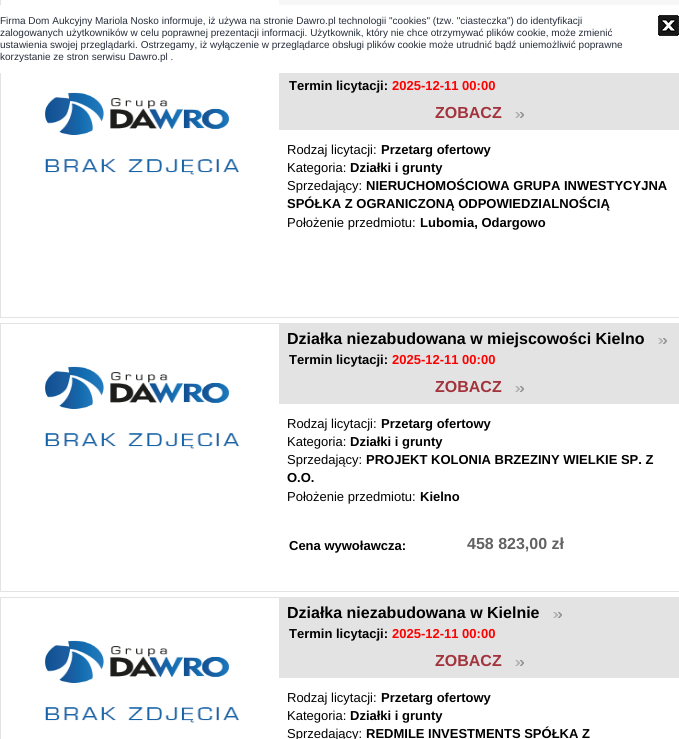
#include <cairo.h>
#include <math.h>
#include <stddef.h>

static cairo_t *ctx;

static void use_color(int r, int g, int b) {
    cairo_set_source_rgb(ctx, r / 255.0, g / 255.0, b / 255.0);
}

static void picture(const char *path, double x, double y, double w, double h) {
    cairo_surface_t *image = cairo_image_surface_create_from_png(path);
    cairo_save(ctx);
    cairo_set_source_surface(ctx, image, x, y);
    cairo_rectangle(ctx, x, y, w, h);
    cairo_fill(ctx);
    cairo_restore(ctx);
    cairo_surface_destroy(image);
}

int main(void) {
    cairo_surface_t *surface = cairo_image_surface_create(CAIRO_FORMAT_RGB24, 679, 739);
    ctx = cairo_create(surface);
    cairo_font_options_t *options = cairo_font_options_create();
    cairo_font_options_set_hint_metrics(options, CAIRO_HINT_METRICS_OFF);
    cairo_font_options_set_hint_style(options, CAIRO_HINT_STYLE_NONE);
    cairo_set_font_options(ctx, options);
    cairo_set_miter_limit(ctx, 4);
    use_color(255, 255, 255);
    cairo_paint(ctx);
    cairo_rectangle(ctx, 0.5, -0.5, 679, 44);
    use_color(227, 227, 227);
    cairo_set_line_width(ctx, 1);
    cairo_stroke(ctx);
    cairo_rectangle(ctx, 0.5, 49.5, 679, 268);
    cairo_stroke(ctx);
    use_color(255, 255, 255);
    cairo_rectangle(ctx, 0, 5, 679, 68);
    cairo_fill(ctx);
    cairo_select_font_face(ctx, "Liberation Sans", CAIRO_FONT_SLANT_NORMAL, CAIRO_FONT_WEIGHT_NORMAL);
    cairo_set_font_size(ctx, 10);
    use_color(38, 45, 57);
    cairo_move_to(ctx, 0, 24);
    cairo_show_text(ctx, "Firma Dom Aukcyjny Mariola Nosko informuje, iż używa na stronie Dawro.pl technologii \"cookies\" (tzw. \"ciasteczka\") do identyfikacji");
    cairo_move_to(ctx, 0, 36);
    cairo_show_text(ctx, "zalogowanych użytkowników w celu poprawnej prezentacji informacji. Użytkownik, który nie chce otrzymywać plików cookie, może zmienić");
    cairo_move_to(ctx, 0, 48);
    cairo_show_text(ctx, "ustawienia swojej przeglądarki. Ostrzegamy, iż wyłączenie w przeglądarce obsługi plików cookie może utrudnić bądź uniemożliwić poprawne");
    cairo_move_to(ctx, 0, 60);
    cairo_show_text(ctx, "korzystanie ze stron serwisu Dawro.pl .");
    picture("img1.png", 658, 15, 21, 21);
    use_color(247, 247, 247);
    cairo_rectangle(ctx, 279, 0, 400, 5);
    cairo_fill(ctx);
    picture("img2.png", 45, 92, 194, 83);
    use_color(227, 227, 227);
    cairo_rectangle(ctx, 279, 73, 400, 57);
    cairo_fill(ctx);
    cairo_select_font_face(ctx, "Liberation Sans", CAIRO_FONT_SLANT_NORMAL, CAIRO_FONT_WEIGHT_BOLD);
    cairo_set_font_size(ctx, 13);
    use_color(0, 0, 0);
    cairo_move_to(ctx, 289, 90);
    cairo_show_text(ctx, "Termin licytacji:");
    use_color(255, 0, 0);
    cairo_move_to(ctx, 392, 90);
    cairo_show_text(ctx, "2025-12-11 00:00");
    cairo_set_font_size(ctx, 16);
    use_color(163, 52, 61);
    cairo_move_to(ctx, 435, 118);
    cairo_show_text(ctx, "ZOBACZ");
    picture("img3.png", 515, 112, 9, 6);
    cairo_select_font_face(ctx, "Liberation Sans", CAIRO_FONT_SLANT_NORMAL, CAIRO_FONT_WEIGHT_NORMAL);
    cairo_set_font_size(ctx, 13);
    use_color(0, 0, 0);
    cairo_move_to(ctx, 287, 154);
    cairo_show_text(ctx, "Rodzaj licytacji:");
    cairo_select_font_face(ctx, "Liberation Sans", CAIRO_FONT_SLANT_NORMAL, CAIRO_FONT_WEIGHT_BOLD);
    cairo_move_to(ctx, 381, 154);
    cairo_show_text(ctx, "Przetarg ofertowy");
    cairo_select_font_face(ctx, "Liberation Sans", CAIRO_FONT_SLANT_NORMAL, CAIRO_FONT_WEIGHT_NORMAL);
    cairo_move_to(ctx, 287, 172);
    cairo_show_text(ctx, "Kategoria:");
    cairo_select_font_face(ctx, "Liberation Sans", CAIRO_FONT_SLANT_NORMAL, CAIRO_FONT_WEIGHT_BOLD);
    cairo_move_to(ctx, 350, 172);
    cairo_show_text(ctx, "Działki i grunty");
    cairo_select_font_face(ctx, "Liberation Sans", CAIRO_FONT_SLANT_NORMAL, CAIRO_FONT_WEIGHT_NORMAL);
    cairo_move_to(ctx, 287, 190);
    cairo_show_text(ctx, "Sprzedający:");
    cairo_select_font_face(ctx, "Liberation Sans", CAIRO_FONT_SLANT_NORMAL, CAIRO_FONT_WEIGHT_BOLD);
    cairo_move_to(ctx, 366, 190);
    cairo_show_text(ctx, "NIERUCHOMOŚCIOWA GRUPA INWESTYCYJNA");
    cairo_move_to(ctx, 287, 208);
    cairo_show_text(ctx, "SPÓŁKA Z OGRANICZONĄ ODPOWIEDZIALNOŚCIĄ");
    cairo_select_font_face(ctx, "Liberation Sans", CAIRO_FONT_SLANT_NORMAL, CAIRO_FONT_WEIGHT_NORMAL);
    cairo_move_to(ctx, 287, 227);
    cairo_show_text(ctx, "Położenie przedmiotu:");
    cairo_select_font_face(ctx, "Liberation Sans", CAIRO_FONT_SLANT_NORMAL, CAIRO_FONT_WEIGHT_BOLD);
    cairo_move_to(ctx, 420, 227);
    cairo_show_text(ctx, "Lubomia, Odargowo");
    cairo_rectangle(ctx, 0.5, 323.5, 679, 268);
    use_color(227, 227, 227);
    cairo_stroke(ctx);
    picture("img4.png", 45, 366, 194, 83);
    cairo_rectangle(ctx, 279, 324, 400, 80);
    cairo_fill(ctx);
    cairo_set_font_size(ctx, 16);
    use_color(0, 0, 0);
    cairo_move_to(ctx, 287, 344);
    cairo_show_text(ctx, "Działka niezabudowana w miejscowości Kielno");
    picture("img3.png", 658, 338, 9, 6);
    cairo_set_font_size(ctx, 13);
    cairo_move_to(ctx, 289, 364);
    cairo_show_text(ctx, "Termin licytacji:");
    use_color(255, 0, 0);
    cairo_move_to(ctx, 392, 364);
    cairo_show_text(ctx, "2025-12-11 00:00");
    cairo_set_font_size(ctx, 16);
    use_color(163, 52, 61);
    cairo_move_to(ctx, 435, 392);
    cairo_show_text(ctx, "ZOBACZ");
    picture("img3.png", 515, 386, 9, 6);
    cairo_select_font_face(ctx, "Liberation Sans", CAIRO_FONT_SLANT_NORMAL, CAIRO_FONT_WEIGHT_NORMAL);
    cairo_set_font_size(ctx, 13);
    use_color(0, 0, 0);
    cairo_move_to(ctx, 287, 428);
    cairo_show_text(ctx, "Rodzaj licytacji:");
    cairo_select_font_face(ctx, "Liberation Sans", CAIRO_FONT_SLANT_NORMAL, CAIRO_FONT_WEIGHT_BOLD);
    cairo_move_to(ctx, 381, 428);
    cairo_show_text(ctx, "Przetarg ofertowy");
    cairo_select_font_face(ctx, "Liberation Sans", CAIRO_FONT_SLANT_NORMAL, CAIRO_FONT_WEIGHT_NORMAL);
    cairo_move_to(ctx, 287, 446);
    cairo_show_text(ctx, "Kategoria:");
    cairo_select_font_face(ctx, "Liberation Sans", CAIRO_FONT_SLANT_NORMAL, CAIRO_FONT_WEIGHT_BOLD);
    cairo_move_to(ctx, 350, 446);
    cairo_show_text(ctx, "Działki i grunty");
    cairo_select_font_face(ctx, "Liberation Sans", CAIRO_FONT_SLANT_NORMAL, CAIRO_FONT_WEIGHT_NORMAL);
    cairo_move_to(ctx, 287, 464);
    cairo_show_text(ctx, "Sprzedający:");
    cairo_select_font_face(ctx, "Liberation Sans", CAIRO_FONT_SLANT_NORMAL, CAIRO_FONT_WEIGHT_BOLD);
    cairo_move_to(ctx, 366, 464);
    cairo_show_text(ctx, "PROJEKT KOLONIA BRZEZINY WIELKIE SP. Z");
    cairo_move_to(ctx, 287, 482);
    cairo_show_text(ctx, "O.O.");
    cairo_select_font_face(ctx, "Liberation Sans", CAIRO_FONT_SLANT_NORMAL, CAIRO_FONT_WEIGHT_NORMAL);
    cairo_move_to(ctx, 287, 501);
    cairo_show_text(ctx, "Położenie przedmiotu:");
    cairo_select_font_face(ctx, "Liberation Sans", CAIRO_FONT_SLANT_NORMAL, CAIRO_FONT_WEIGHT_BOLD);
    cairo_move_to(ctx, 420, 501);
    cairo_show_text(ctx, "Kielno");
    cairo_move_to(ctx, 289, 550);
    cairo_show_text(ctx, "Cena wywoławcza:");
    cairo_set_font_size(ctx, 16);
    use_color(99, 99, 99);
    cairo_move_to(ctx, 467, 549);
    cairo_show_text(ctx, "458 823,00 zł");
    cairo_rectangle(ctx, 0.5, 597.5, 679, 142);
    use_color(227, 227, 227);
    cairo_stroke(ctx);
    picture("img4.png", 45, 640, 194, 83);
    cairo_rectangle(ctx, 279, 598, 400, 80);
    cairo_fill(ctx);
    use_color(0, 0, 0);
    cairo_move_to(ctx, 287, 618);
    cairo_show_text(ctx, "Działka niezabudowana w Kielnie");
    picture("img3.png", 553, 612, 9, 6);
    cairo_set_font_size(ctx, 13);
    cairo_move_to(ctx, 289, 638);
    cairo_show_text(ctx, "Termin licytacji:");
    use_color(255, 0, 0);
    cairo_move_to(ctx, 392, 638);
    cairo_show_text(ctx, "2025-12-11 00:00");
    cairo_set_font_size(ctx, 16);
    use_color(163, 52, 61);
    cairo_move_to(ctx, 435, 666);
    cairo_show_text(ctx, "ZOBACZ");
    picture("img3.png", 515, 660, 9, 6);
    cairo_select_font_face(ctx, "Liberation Sans", CAIRO_FONT_SLANT_NORMAL, CAIRO_FONT_WEIGHT_NORMAL);
    cairo_set_font_size(ctx, 13);
    use_color(0, 0, 0);
    cairo_move_to(ctx, 287, 702);
    cairo_show_text(ctx, "Rodzaj licytacji:");
    cairo_select_font_face(ctx, "Liberation Sans", CAIRO_FONT_SLANT_NORMAL, CAIRO_FONT_WEIGHT_BOLD);
    cairo_move_to(ctx, 381, 702);
    cairo_show_text(ctx, "Przetarg ofertowy");
    cairo_select_font_face(ctx, "Liberation Sans", CAIRO_FONT_SLANT_NORMAL, CAIRO_FONT_WEIGHT_NORMAL);
    cairo_move_to(ctx, 287, 720);
    cairo_show_text(ctx, "Kategoria:");
    cairo_select_font_face(ctx, "Liberation Sans", CAIRO_FONT_SLANT_NORMAL, CAIRO_FONT_WEIGHT_BOLD);
    cairo_move_to(ctx, 350, 720);
    cairo_show_text(ctx, "Działki i grunty");
    cairo_select_font_face(ctx, "Liberation Sans", CAIRO_FONT_SLANT_NORMAL, CAIRO_FONT_WEIGHT_NORMAL);
    cairo_move_to(ctx, 287, 738);
    cairo_show_text(ctx, "Sprzedający:");
    cairo_select_font_face(ctx, "Liberation Sans", CAIRO_FONT_SLANT_NORMAL, CAIRO_FONT_WEIGHT_BOLD);
    cairo_move_to(ctx, 366, 738);
    cairo_show_text(ctx, "REDMILE INVESTMENTS SPÓŁKA Z");
    cairo_surface_write_to_png(surface, "result.png");
    cairo_font_options_destroy(options);
    cairo_destroy(ctx);
    cairo_surface_destroy(surface);
    return 0;
}
